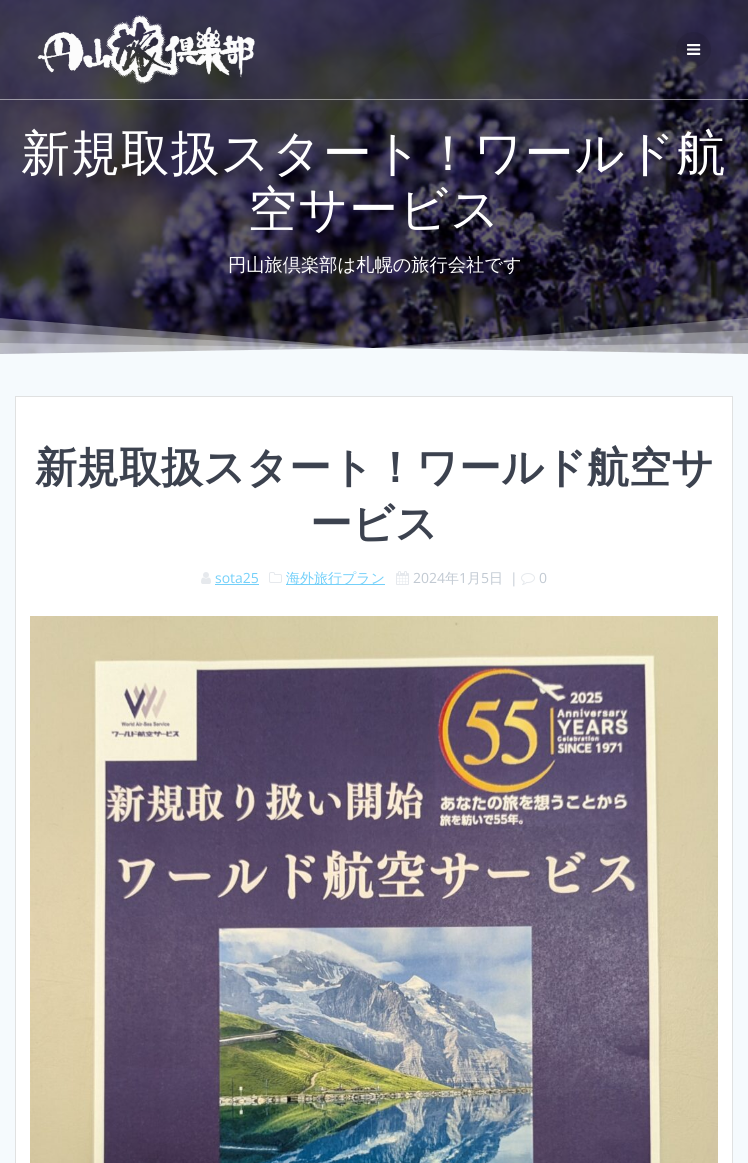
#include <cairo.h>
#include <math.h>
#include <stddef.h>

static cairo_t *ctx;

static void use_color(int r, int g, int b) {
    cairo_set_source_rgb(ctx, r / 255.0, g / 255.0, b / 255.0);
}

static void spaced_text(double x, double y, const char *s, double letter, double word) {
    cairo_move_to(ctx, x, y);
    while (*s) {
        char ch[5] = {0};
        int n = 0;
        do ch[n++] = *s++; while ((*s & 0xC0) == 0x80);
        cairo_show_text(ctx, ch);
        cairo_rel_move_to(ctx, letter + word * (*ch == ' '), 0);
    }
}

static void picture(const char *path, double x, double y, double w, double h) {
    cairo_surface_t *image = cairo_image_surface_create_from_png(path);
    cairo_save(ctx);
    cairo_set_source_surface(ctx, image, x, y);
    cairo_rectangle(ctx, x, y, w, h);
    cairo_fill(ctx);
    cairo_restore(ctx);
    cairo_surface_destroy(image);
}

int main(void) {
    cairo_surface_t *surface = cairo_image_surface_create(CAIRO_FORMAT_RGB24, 748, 1163);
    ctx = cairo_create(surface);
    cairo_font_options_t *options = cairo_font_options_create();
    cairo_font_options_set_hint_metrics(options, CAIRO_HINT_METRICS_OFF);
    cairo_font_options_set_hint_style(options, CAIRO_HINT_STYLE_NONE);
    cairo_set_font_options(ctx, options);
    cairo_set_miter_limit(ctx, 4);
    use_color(255, 255, 255);
    cairo_paint(ctx);
    picture("img3.png", 0, 0, 748, 354);
    picture("img4.png", 279, 33, 404, 203);
    cairo_set_source_rgba(ctx, 1, 1, 1, 0.5);
    cairo_rectangle(ctx, 0, 99, 748, 1);
    cairo_fill(ctx);
    picture("img1.png", 37, 14, 218, 71);
    cairo_set_source_rgba(ctx, 0, 0, 0, 0.1);
    cairo_arc(ctx, 693.5, 49.5, 17.5, 0, 2 * M_PI);
    cairo_fill(ctx);
    picture("img2.png", 687, 44, 14, 11);
    cairo_select_font_face(ctx, "WenQuanYi Zen Hei Medium", CAIRO_FONT_SLANT_NORMAL, CAIRO_FONT_WEIGHT_NORMAL);
    cairo_set_font_size(ctx, 49);
    use_color(255, 255, 255);
    spaced_text(21, 170, "新規取扱スタート！ワールド航", 0.9, 0);
    spaced_text(248, 226, "空サービス", 0.9, 0);
    cairo_set_font_size(ctx, 18.25);
    cairo_move_to(ctx, 228, 271);
    cairo_show_text(ctx, "円山旅倶楽部は札幌の旅行会社です");
    cairo_set_source_rgba(ctx, 0.961, 0.98, 0.992, 0.33);
    cairo_new_path(ctx);
    cairo_move_to(ctx, 748, 356);
    cairo_line_to(ctx, 748, 318);
    cairo_line_to(ctx, 373, 348);
    cairo_line_to(ctx, -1, 318);
    cairo_line_to(ctx, -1, 356);
    cairo_close_path(ctx);
    cairo_fill(ctx);
    cairo_new_path(ctx);
    cairo_move_to(ctx, 748, 356);
    cairo_line_to(ctx, 748, 330);
    cairo_line_to(ctx, 373, 348);
    cairo_line_to(ctx, -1, 330);
    cairo_line_to(ctx, -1, 356);
    cairo_close_path(ctx);
    cairo_fill(ctx);
    cairo_new_path(ctx);
    cairo_move_to(ctx, 748, 356);
    cairo_line_to(ctx, 748, 343);
    cairo_line_to(ctx, 373, 348);
    cairo_line_to(ctx, -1, 343);
    cairo_line_to(ctx, -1, 356);
    cairo_close_path(ctx);
    cairo_fill(ctx);
    use_color(245, 250, 253);
    cairo_new_path(ctx);
    cairo_move_to(ctx, 748, 356);
    cairo_line_to(ctx, 748, 354);
    cairo_line_to(ctx, 373, 348);
    cairo_line_to(ctx, -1, 354);
    cairo_line_to(ctx, -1, 356);
    cairo_close_path(ctx);
    cairo_fill(ctx);
    cairo_rectangle(ctx, 0, 356, 748, 807);
    cairo_fill(ctx);
    use_color(255, 255, 255);
    cairo_rectangle(ctx, 15.5, 396.5, 717, 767);
    cairo_fill_preserve(ctx);
    use_color(224, 225, 225);
    cairo_set_line_width(ctx, 1);
    cairo_stroke(ctx);
    cairo_select_font_face(ctx, "WenQuanYi Zen Hei", CAIRO_FONT_SLANT_NORMAL, CAIRO_FONT_WEIGHT_BOLD);
    cairo_set_font_size(ctx, 42);
    use_color(60, 66, 79);
    cairo_move_to(ctx, 35, 482);
    cairo_show_text(ctx, "新規取扱スタート！ワールド航空サ");
    cairo_move_to(ctx, 310, 538);
    cairo_show_text(ctx, "ービス");
    picture("img5.png", 201, 572, 10, 12);
    cairo_select_font_face(ctx, "Open Sans", CAIRO_FONT_SLANT_NORMAL, CAIRO_FONT_WEIGHT_NORMAL);
    cairo_set_font_size(ctx, 14);
    use_color(116, 208, 249);
    cairo_move_to(ctx, 215, 583);
    cairo_show_text(ctx, "sota25");
    cairo_rectangle(ctx, 215, 584, 44, 1);
    cairo_fill(ctx);
    picture("img6.png", 269, 572, 13, 11);
    cairo_rectangle(ctx, 286, 584, 99, 1);
    cairo_fill(ctx);
    cairo_select_font_face(ctx, "WenQuanYi Zen Hei Medium", CAIRO_FONT_SLANT_NORMAL, CAIRO_FONT_WEIGHT_NORMAL);
    cairo_move_to(ctx, 286, 583);
    cairo_show_text(ctx, "海外旅行プラン");
    picture("img7.png", 396, 571, 13, 14);
    cairo_select_font_face(ctx, "Open Sans", CAIRO_FONT_SLANT_NORMAL, CAIRO_FONT_WEIGHT_NORMAL);
    use_color(193, 201, 210);
    cairo_move_to(ctx, 413, 583);
    cairo_show_text(ctx, "2024");
    cairo_select_font_face(ctx, "WenQuanYi Zen Hei Medium", CAIRO_FONT_SLANT_NORMAL, CAIRO_FONT_WEIGHT_NORMAL);
    cairo_move_to(ctx, 445, 583);
    cairo_show_text(ctx, "年");
    cairo_select_font_face(ctx, "Open Sans", CAIRO_FONT_SLANT_NORMAL, CAIRO_FONT_WEIGHT_NORMAL);
    cairo_move_to(ctx, 459, 583);
    cairo_show_text(ctx, "1");
    cairo_select_font_face(ctx, "WenQuanYi Zen Hei Medium", CAIRO_FONT_SLANT_NORMAL, CAIRO_FONT_WEIGHT_NORMAL);
    cairo_move_to(ctx, 467, 583);
    cairo_show_text(ctx, "月");
    cairo_select_font_face(ctx, "Open Sans", CAIRO_FONT_SLANT_NORMAL, CAIRO_FONT_WEIGHT_NORMAL);
    cairo_move_to(ctx, 481, 583);
    cairo_show_text(ctx, "5");
    cairo_select_font_face(ctx, "WenQuanYi Zen Hei Medium", CAIRO_FONT_SLANT_NORMAL, CAIRO_FONT_WEIGHT_NORMAL);
    cairo_move_to(ctx, 489, 583);
    cairo_show_text(ctx, "日");
    cairo_select_font_face(ctx, "Open Sans", CAIRO_FONT_SLANT_NORMAL, CAIRO_FONT_WEIGHT_NORMAL);
    cairo_move_to(ctx, 510, 583);
    cairo_show_text(ctx, "|");
    picture("img8.png", 521, 573, 14, 12);
    cairo_move_to(ctx, 539, 583);
    cairo_show_text(ctx, "0");
    picture("img9.png", 30, 616, 688, 547);
    cairo_surface_write_to_png(surface, "result.png");
    cairo_font_options_destroy(options);
    cairo_destroy(ctx);
    cairo_surface_destroy(surface);
    return 0;
}
